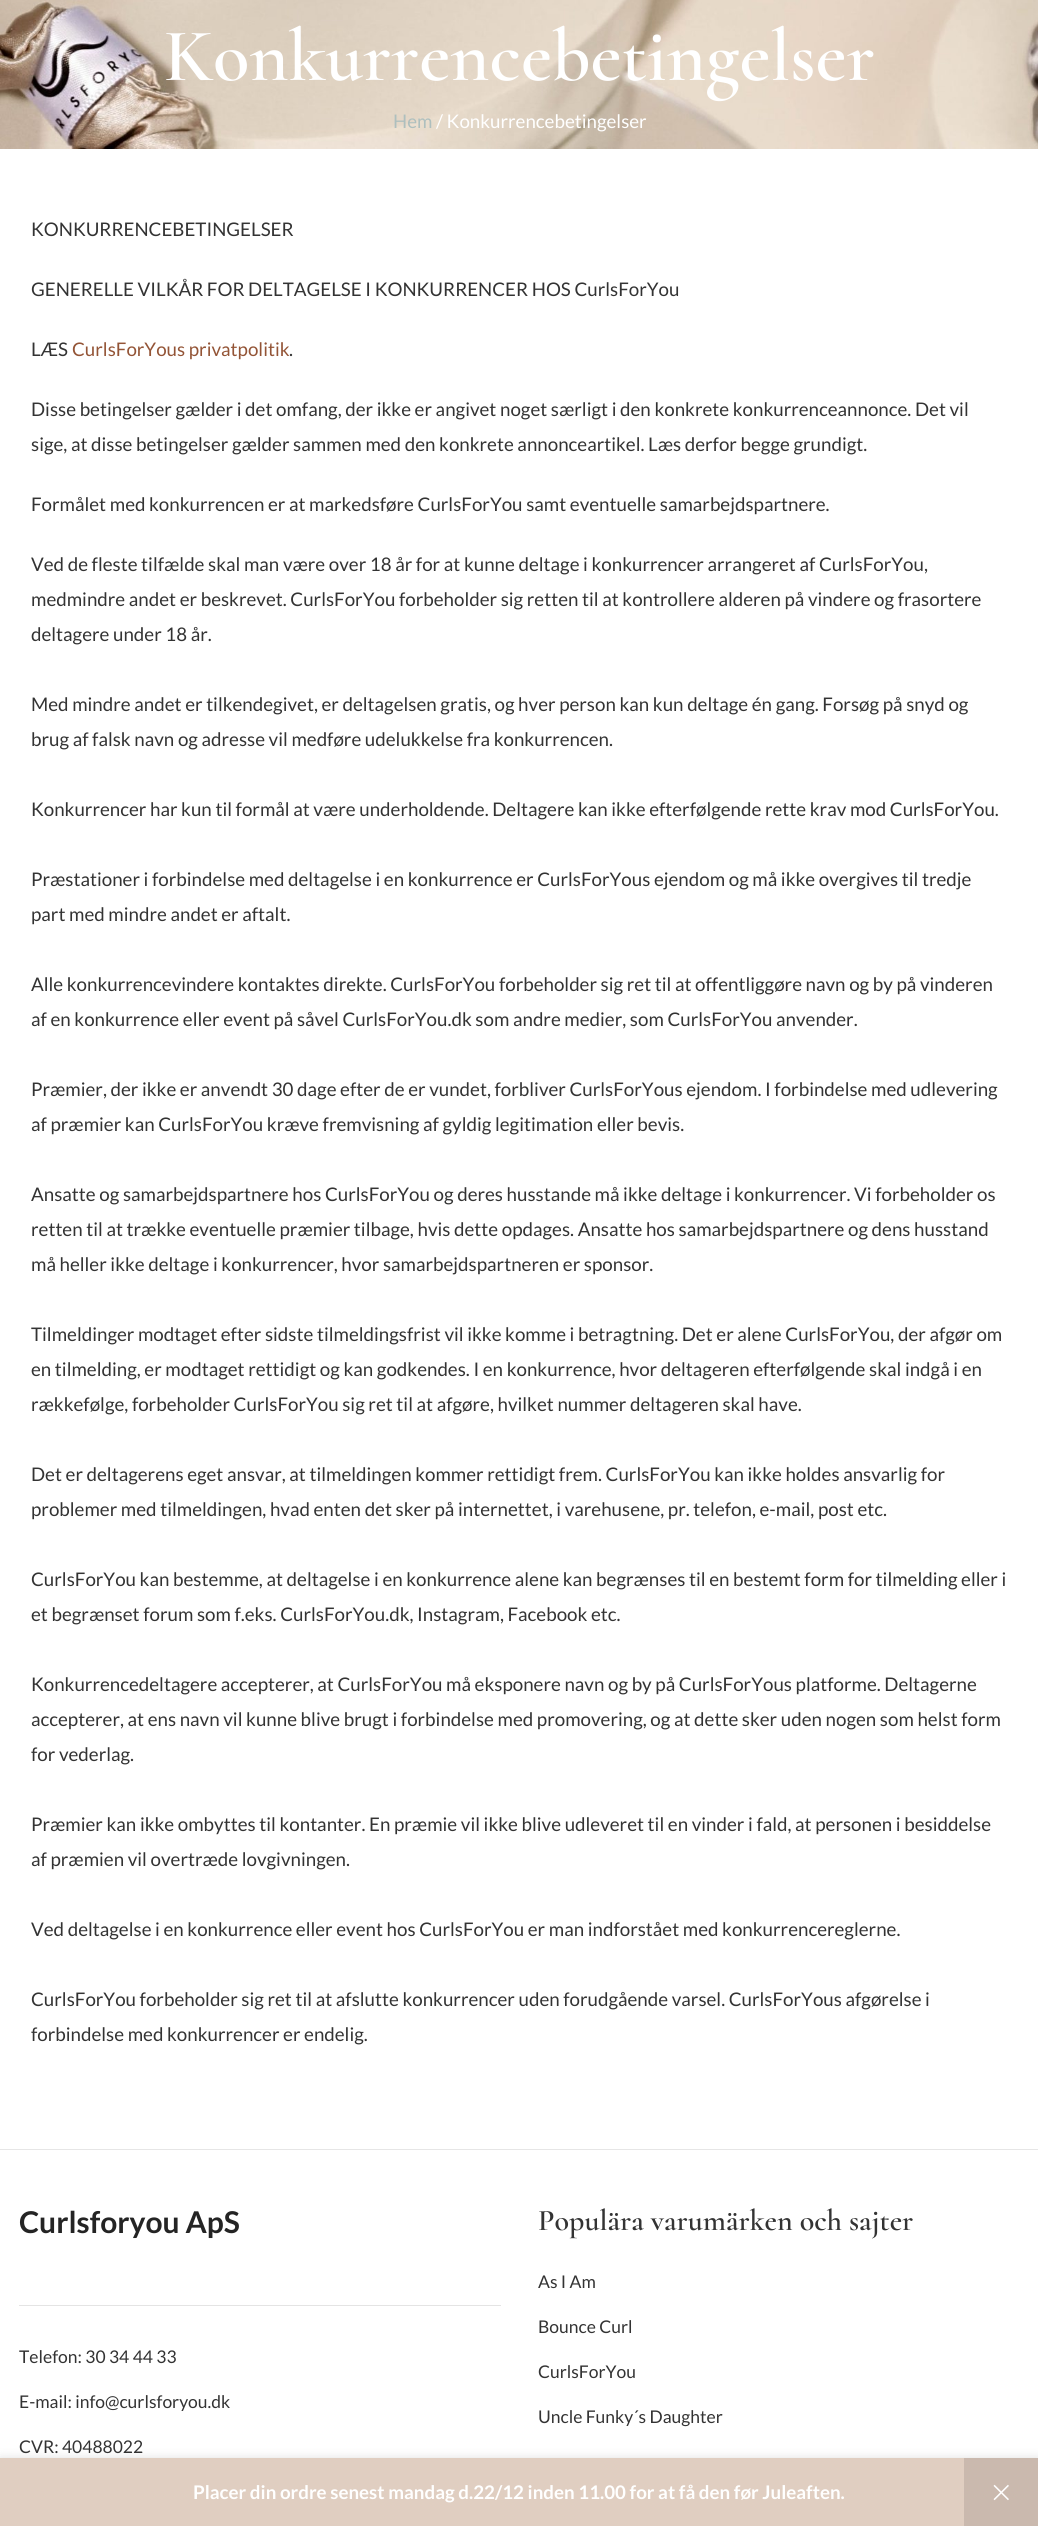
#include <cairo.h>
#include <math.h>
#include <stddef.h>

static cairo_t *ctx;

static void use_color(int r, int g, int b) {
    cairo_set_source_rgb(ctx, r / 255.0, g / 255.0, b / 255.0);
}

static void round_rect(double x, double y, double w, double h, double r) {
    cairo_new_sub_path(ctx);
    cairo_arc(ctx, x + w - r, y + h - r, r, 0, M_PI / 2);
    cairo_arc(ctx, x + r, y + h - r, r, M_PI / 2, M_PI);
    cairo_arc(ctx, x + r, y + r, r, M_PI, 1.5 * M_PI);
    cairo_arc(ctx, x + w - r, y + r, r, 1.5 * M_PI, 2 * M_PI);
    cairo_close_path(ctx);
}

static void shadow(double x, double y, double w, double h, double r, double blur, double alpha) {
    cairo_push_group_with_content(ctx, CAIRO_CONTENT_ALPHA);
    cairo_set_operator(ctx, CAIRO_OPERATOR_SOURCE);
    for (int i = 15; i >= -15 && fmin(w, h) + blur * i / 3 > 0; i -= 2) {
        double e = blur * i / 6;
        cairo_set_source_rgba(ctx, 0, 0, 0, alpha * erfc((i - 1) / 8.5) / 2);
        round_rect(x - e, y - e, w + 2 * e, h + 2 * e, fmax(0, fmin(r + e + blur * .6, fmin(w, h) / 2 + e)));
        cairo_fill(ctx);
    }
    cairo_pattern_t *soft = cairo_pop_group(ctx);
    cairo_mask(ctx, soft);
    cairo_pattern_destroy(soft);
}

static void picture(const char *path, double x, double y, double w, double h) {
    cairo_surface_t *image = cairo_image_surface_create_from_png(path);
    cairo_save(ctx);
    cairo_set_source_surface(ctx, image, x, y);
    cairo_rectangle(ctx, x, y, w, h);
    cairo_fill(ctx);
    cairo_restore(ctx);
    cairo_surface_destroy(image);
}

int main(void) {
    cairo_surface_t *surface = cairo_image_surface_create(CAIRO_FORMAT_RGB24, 1038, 2526);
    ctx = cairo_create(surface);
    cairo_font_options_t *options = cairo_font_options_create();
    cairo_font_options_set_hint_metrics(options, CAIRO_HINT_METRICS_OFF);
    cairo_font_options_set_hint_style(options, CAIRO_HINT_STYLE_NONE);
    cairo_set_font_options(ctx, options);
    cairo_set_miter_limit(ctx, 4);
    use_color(255, 255, 255);
    cairo_paint(ctx);
    picture("img1.png", 0, 0, 1038, 149);
    cairo_select_font_face(ctx, "Cormorant SemiBold", CAIRO_FONT_SLANT_NORMAL, CAIRO_FONT_WEIGHT_NORMAL);
    cairo_set_font_size(ctx, 75);
    use_color(255, 255, 255);
    cairo_move_to(ctx, 164, 80);
    cairo_show_text(ctx, "Konkurrencebetingelser");
    cairo_select_font_face(ctx, "Lato", CAIRO_FONT_SLANT_NORMAL, CAIRO_FONT_WEIGHT_NORMAL);
    cairo_set_font_size(ctx, 18.75);
    use_color(174, 191, 190);
    cairo_move_to(ctx, 393, 128);
    cairo_show_text(ctx, "Hem");
    use_color(255, 255, 255);
    cairo_move_to(ctx, 436, 128);
    cairo_show_text(ctx, "/ Konkurrencebetingelser");
    use_color(51, 51, 51);
    cairo_move_to(ctx, 31, 236);
    cairo_show_text(ctx, "KONKURRENCEBETINGELSER");
    cairo_move_to(ctx, 31, 296);
    cairo_show_text(ctx, "GENERELLE VILKÅR FOR DELTAGELSE I KONKURRENCER HOS CurlsForYou");
    cairo_move_to(ctx, 31, 356);
    cairo_show_text(ctx, "LÆS");
    use_color(147, 84, 54);
    cairo_move_to(ctx, 72, 356);
    cairo_show_text(ctx, "CurlsForYous privatpolitik");
    use_color(51, 51, 51);
    cairo_move_to(ctx, 289, 356);
    cairo_show_text(ctx, ".");
    cairo_move_to(ctx, 31, 416);
    cairo_show_text(ctx, "Disse betingelser gælder i det omfang, der ikke er angivet noget særligt i den konkrete konkurrenceannonce. Det vil");
    cairo_move_to(ctx, 31, 451);
    cairo_show_text(ctx, "sige, at disse betingelser gælder sammen med den konkrete annonceartikel. Læs derfor begge grundigt.");
    cairo_move_to(ctx, 31, 511);
    cairo_show_text(ctx, "Formålet med konkurrencen er at markedsføre CurlsForYou samt eventuelle samarbejdspartnere.");
    cairo_move_to(ctx, 31, 571);
    cairo_show_text(ctx, "Ved de fleste tilfælde skal man være over 18 år for at kunne deltage i konkurrencer arrangeret af CurlsForYou,");
    cairo_move_to(ctx, 31, 606);
    cairo_show_text(ctx, "medmindre andet er beskrevet. CurlsForYou forbeholder sig retten til at kontrollere alderen på vindere og frasortere");
    cairo_move_to(ctx, 31, 641);
    cairo_show_text(ctx, "deltagere under 18 år.");
    cairo_move_to(ctx, 31, 711);
    cairo_show_text(ctx, "Med mindre andet er tilkendegivet, er deltagelsen gratis, og hver person kan kun deltage én gang. Forsøg på snyd og");
    cairo_move_to(ctx, 31, 746);
    cairo_show_text(ctx, "brug af falsk navn og adresse vil medføre udelukkelse fra konkurrencen.");
    cairo_move_to(ctx, 31, 816);
    cairo_show_text(ctx, "Konkurrencer har kun til formål at være underholdende. Deltagere kan ikke efterfølgende rette krav mod CurlsForYou.");
    cairo_move_to(ctx, 31, 886);
    cairo_show_text(ctx, "Præstationer i forbindelse med deltagelse i en konkurrence er CurlsForYous ejendom og må ikke overgives til tredje");
    cairo_move_to(ctx, 31, 921);
    cairo_show_text(ctx, "part med mindre andet er aftalt.");
    cairo_move_to(ctx, 31, 991);
    cairo_show_text(ctx, "Alle konkurrencevindere kontaktes direkte. CurlsForYou forbeholder sig ret til at offentliggøre navn og by på vinderen");
    cairo_move_to(ctx, 31, 1026);
    cairo_show_text(ctx, "af en konkurrence eller event på såvel CurlsForYou.dk som andre medier, som CurlsForYou anvender.");
    cairo_move_to(ctx, 31, 1096);
    cairo_show_text(ctx, "Præmier, der ikke er anvendt 30 dage efter de er vundet, forbliver CurlsForYous ejendom. I forbindelse med udlevering");
    cairo_move_to(ctx, 31, 1131);
    cairo_show_text(ctx, "af præmier kan CurlsForYou kræve fremvisning af gyldig legitimation eller bevis.");
    cairo_move_to(ctx, 31, 1201);
    cairo_show_text(ctx, "Ansatte og samarbejdspartnere hos CurlsForYou og deres husstande må ikke deltage i konkurrencer. Vi forbeholder os");
    cairo_move_to(ctx, 31, 1236);
    cairo_show_text(ctx, "retten til at trække eventuelle præmier tilbage, hvis dette opdages. Ansatte hos samarbejdspartnere og dens husstand");
    cairo_move_to(ctx, 31, 1271);
    cairo_show_text(ctx, "må heller ikke deltage i konkurrencer, hvor samarbejdspartneren er sponsor.");
    cairo_move_to(ctx, 31, 1341);
    cairo_show_text(ctx, "Tilmeldinger modtaget efter sidste tilmeldingsfrist vil ikke komme i betragtning. Det er alene CurlsForYou, der afgør om");
    cairo_move_to(ctx, 31, 1376);
    cairo_show_text(ctx, "en tilmelding, er modtaget rettidigt og kan godkendes. I en konkurrence, hvor deltageren efterfølgende skal indgå i en");
    cairo_move_to(ctx, 31, 1411);
    cairo_show_text(ctx, "rækkefølge, forbeholder CurlsForYou sig ret til at afgøre, hvilket nummer deltageren skal have.");
    cairo_move_to(ctx, 31, 1481);
    cairo_show_text(ctx, "Det er deltagerens eget ansvar, at tilmeldingen kommer rettidigt frem. CurlsForYou kan ikke holdes ansvarlig for");
    cairo_move_to(ctx, 31, 1516);
    cairo_show_text(ctx, "problemer med tilmeldingen, hvad enten det sker på internettet, i varehusene, pr. telefon, e-mail, post etc.");
    cairo_move_to(ctx, 31, 1586);
    cairo_show_text(ctx, "CurlsForYou kan bestemme, at deltagelse i en konkurrence alene kan begrænses til en bestemt form for tilmelding eller i");
    cairo_move_to(ctx, 31, 1621);
    cairo_show_text(ctx, "et begrænset forum som f.eks. CurlsForYou.dk, Instagram, Facebook etc.");
    cairo_move_to(ctx, 31, 1691);
    cairo_show_text(ctx, "Konkurrencedeltagere accepterer, at CurlsForYou må eksponere navn og by på CurlsForYous platforme. Deltagerne");
    cairo_move_to(ctx, 31, 1726);
    cairo_show_text(ctx, "accepterer, at ens navn vil kunne blive brugt i forbindelse med promovering, og at dette sker uden nogen som helst form");
    cairo_move_to(ctx, 31, 1761);
    cairo_show_text(ctx, "for vederlag.");
    cairo_move_to(ctx, 31, 1831);
    cairo_show_text(ctx, "Præmier kan ikke ombyttes til kontanter. En præmie vil ikke blive udleveret til en vinder i fald, at personen i besiddelse");
    cairo_move_to(ctx, 31, 1866);
    cairo_show_text(ctx, "af præmien vil overtræde lovgivningen.");
    cairo_move_to(ctx, 31, 1936);
    cairo_show_text(ctx, "Ved deltagelse i en konkurrence eller event hos CurlsForYou er man indforstået med konkurrencereglerne.");
    cairo_move_to(ctx, 31, 2006);
    cairo_show_text(ctx, "CurlsForYou forbeholder sig ret til at afslutte konkurrencer uden forudgående varsel. CurlsForYous afgørelse i");
    cairo_move_to(ctx, 31, 2041);
    cairo_show_text(ctx, "forbindelse med konkurrencer er endelig.");
    use_color(230, 230, 230);
    cairo_rectangle(ctx, 0, 2149, 1038, 1);
    cairo_fill(ctx);
    use_color(228, 228, 228);
    cairo_rectangle(ctx, 19, 2305, 482, 1);
    cairo_fill(ctx);
    cairo_select_font_face(ctx, "Lato", CAIRO_FONT_SLANT_NORMAL, CAIRO_FONT_WEIGHT_BOLD);
    cairo_set_font_size(ctx, 30);
    use_color(36, 36, 36);
    cairo_move_to(ctx, 19, 2233);
    cairo_show_text(ctx, "Curlsforyou ApS");
    cairo_select_font_face(ctx, "Lato", CAIRO_FONT_SLANT_NORMAL, CAIRO_FONT_WEIGHT_NORMAL);
    cairo_set_font_size(ctx, 17.5);
    use_color(51, 51, 51);
    cairo_move_to(ctx, 19, 2363);
    cairo_show_text(ctx, "Telefon: 30 34 44 33");
    cairo_move_to(ctx, 19, 2408);
    cairo_show_text(ctx, "E-mail: info@curlsforyou.dk");
    cairo_move_to(ctx, 19, 2453);
    cairo_show_text(ctx, "CVR: 40488022");
    cairo_select_font_face(ctx, "Cormorant SemiBold", CAIRO_FONT_SLANT_NORMAL, CAIRO_FONT_WEIGHT_NORMAL);
    cairo_set_font_size(ctx, 30);
    cairo_move_to(ctx, 538, 2230);
    cairo_show_text(ctx, "Populära varumärken och sajter");
    cairo_select_font_face(ctx, "Lato", CAIRO_FONT_SLANT_NORMAL, CAIRO_FONT_WEIGHT_NORMAL);
    cairo_set_font_size(ctx, 17.5);
    cairo_move_to(ctx, 538, 2288);
    cairo_show_text(ctx, "As I Am");
    cairo_move_to(ctx, 538, 2333);
    cairo_show_text(ctx, "Bounce Curl");
    cairo_move_to(ctx, 538, 2378);
    cairo_show_text(ctx, "CurlsForYou");
    cairo_move_to(ctx, 538, 2423);
    cairo_show_text(ctx, "Uncle Funky´s Daughter");
    use_color(0, 0, 0);
    shadow(0, 2458, 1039, 68, 0, 5.5, 0.12);
    use_color(224, 206, 193);
    cairo_rectangle(ctx, 0, 2458, 964, 68);
    cairo_fill(ctx);
    cairo_select_font_face(ctx, "Lato", CAIRO_FONT_SLANT_NORMAL, CAIRO_FONT_WEIGHT_BOLD);
    cairo_set_font_size(ctx, 18.75);
    use_color(255, 255, 255);
    cairo_move_to(ctx, 193, 2499);
    cairo_show_text(ctx, "Placer din ordre senest mandag d.22/12 inden 11.00 for at få den før Juleaften.");
    use_color(202, 185, 174);
    cairo_rectangle(ctx, 964, 2458, 74, 68);
    cairo_fill(ctx);
    picture("img2.png", 993, 2484, 16, 17);
    cairo_surface_write_to_png(surface, "result.png");
    cairo_font_options_destroy(options);
    cairo_destroy(ctx);
    cairo_surface_destroy(surface);
    return 0;
}
